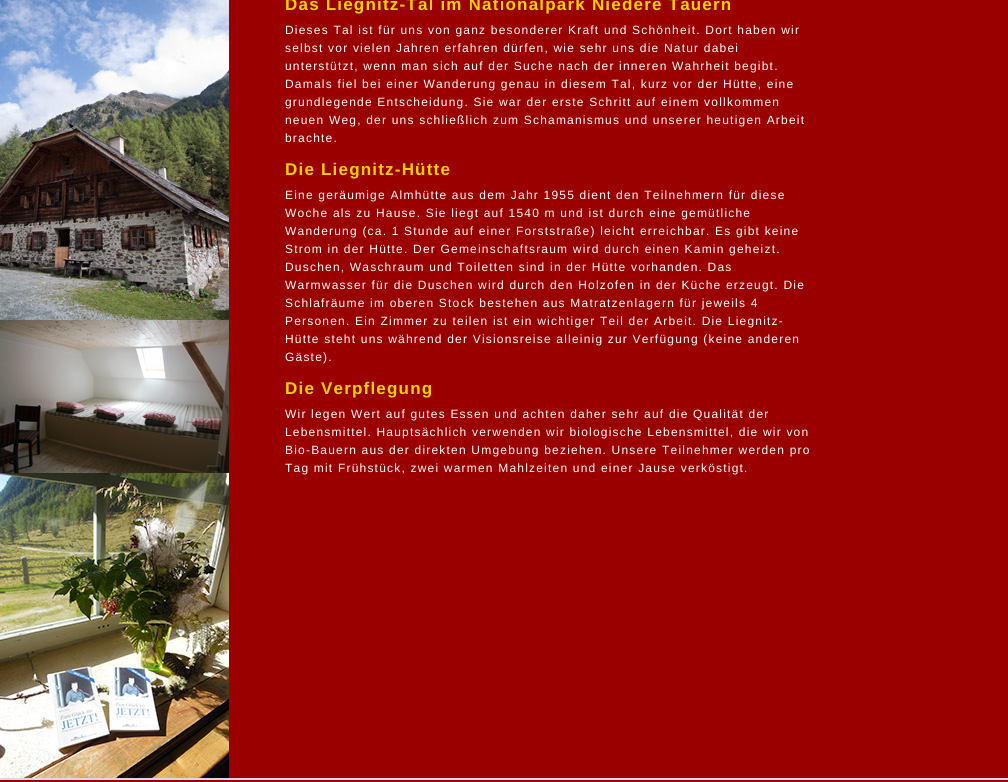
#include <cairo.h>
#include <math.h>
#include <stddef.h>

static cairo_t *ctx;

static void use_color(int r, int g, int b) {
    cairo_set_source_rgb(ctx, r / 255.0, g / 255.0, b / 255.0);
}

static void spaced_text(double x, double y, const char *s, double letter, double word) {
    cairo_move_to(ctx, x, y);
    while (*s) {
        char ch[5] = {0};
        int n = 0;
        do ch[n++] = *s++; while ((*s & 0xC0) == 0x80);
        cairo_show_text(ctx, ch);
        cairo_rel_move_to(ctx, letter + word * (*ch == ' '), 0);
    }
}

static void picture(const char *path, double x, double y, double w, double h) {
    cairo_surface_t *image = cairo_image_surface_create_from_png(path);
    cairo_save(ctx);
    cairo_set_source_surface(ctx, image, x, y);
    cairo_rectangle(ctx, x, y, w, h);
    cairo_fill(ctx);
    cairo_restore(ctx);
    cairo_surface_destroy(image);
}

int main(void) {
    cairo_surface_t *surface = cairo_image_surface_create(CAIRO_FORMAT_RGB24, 1008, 782);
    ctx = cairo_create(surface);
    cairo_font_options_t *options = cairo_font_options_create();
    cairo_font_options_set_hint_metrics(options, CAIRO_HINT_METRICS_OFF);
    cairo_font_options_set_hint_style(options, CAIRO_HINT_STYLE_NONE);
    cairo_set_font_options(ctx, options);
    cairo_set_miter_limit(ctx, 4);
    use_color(154, 0, 0);
    cairo_paint(ctx);
    picture("img1.png", 0, 0, 229, 320);
    picture("img2.png", 0, 320, 229, 153);
    picture("img3.png", 0, 473, 229, 305);
    cairo_select_font_face(ctx, "Liberation Sans", CAIRO_FONT_SLANT_NORMAL, CAIRO_FONT_WEIGHT_BOLD);
    cairo_set_font_size(ctx, 17);
    use_color(255, 210, 0);
    spaced_text(285, 10, "Das Liegnitz-Tal im Nationalpark Niedere Tauern", 1.2, 0);
    cairo_select_font_face(ctx, "Liberation Sans", CAIRO_FONT_SLANT_NORMAL, CAIRO_FONT_WEIGHT_NORMAL);
    cairo_set_font_size(ctx, 12);
    use_color(255, 255, 255);
    spaced_text(285, 34, "Dieses Tal ist für uns von ganz besonderer Kraft und Schönheit. Dort haben wir", 1.2, 0);
    spaced_text(285, 52, "selbst vor vielen Jahren erfahren dürfen, wie sehr uns die Natur dabei", 1.2, 0);
    spaced_text(285, 70, "unterstützt, wenn man sich auf der Suche nach der inneren Wahrheit begibt.", 1.2, 0);
    spaced_text(285, 88, "Damals fiel bei einer Wanderung genau in diesem Tal, kurz vor der Hütte, eine", 1.2, 0);
    spaced_text(285, 106, "grundlegende Entscheidung. Sie war der erste Schritt auf einem vollkommen", 1.2, 0);
    spaced_text(285, 124, "neuen Weg, der uns schließlich zum Schamanismus und unserer heutigen Arbeit", 1.2, 0);
    spaced_text(285, 142, "brachte.", 1.2, 0);
    cairo_select_font_face(ctx, "Liberation Sans", CAIRO_FONT_SLANT_NORMAL, CAIRO_FONT_WEIGHT_BOLD);
    cairo_set_font_size(ctx, 17);
    use_color(255, 210, 0);
    spaced_text(285, 175, "Die Liegnitz-Hütte", 1.2, 0);
    cairo_select_font_face(ctx, "Liberation Sans", CAIRO_FONT_SLANT_NORMAL, CAIRO_FONT_WEIGHT_NORMAL);
    cairo_set_font_size(ctx, 12);
    use_color(255, 255, 255);
    spaced_text(285, 199, "Eine geräumige Almhütte aus dem Jahr 1955 dient den Teilnehmern für diese", 1.2, 0);
    spaced_text(285, 217, "Woche als zu Hause. Sie liegt auf 1540 m und ist durch eine gemütliche", 1.2, 0);
    spaced_text(285, 235, "Wanderung (ca. 1 Stunde auf einer Forststraße) leicht erreichbar. Es gibt keine", 1.2, 0);
    spaced_text(285, 253, "Strom in der Hütte. Der Gemeinschaftsraum wird durch einen Kamin geheizt.", 1.2, 0);
    spaced_text(285, 271, "Duschen, Waschraum und Toiletten sind in der Hütte vorhanden. Das", 1.2, 0);
    spaced_text(285, 289, "Warmwasser für die Duschen wird durch den Holzofen in der Küche erzeugt. Die", 1.2, 0);
    spaced_text(285, 307, "Schlafräume im oberen Stock bestehen aus Matratzenlagern für jeweils 4", 1.2, 0);
    spaced_text(285, 325, "Personen. Ein Zimmer zu teilen ist ein wichtiger Teil der Arbeit. Die Liegnitz-", 1.2, 0);
    spaced_text(285, 343, "Hütte steht uns während der Visionsreise alleinig zur Verfügung (keine anderen", 1.2, 0);
    spaced_text(285, 361, "Gäste).", 1.2, 0);
    cairo_select_font_face(ctx, "Liberation Sans", CAIRO_FONT_SLANT_NORMAL, CAIRO_FONT_WEIGHT_BOLD);
    cairo_set_font_size(ctx, 17);
    use_color(255, 210, 0);
    spaced_text(285, 394, "Die Verpflegung", 1.2, 0);
    cairo_select_font_face(ctx, "Liberation Sans", CAIRO_FONT_SLANT_NORMAL, CAIRO_FONT_WEIGHT_NORMAL);
    cairo_set_font_size(ctx, 12);
    use_color(255, 255, 255);
    spaced_text(285, 418, "Wir legen Wert auf gutes Essen und achten daher sehr auf die Qualität der", 1.2, 0);
    spaced_text(285, 436, "Lebensmittel. Hauptsächlich verwenden wir biologische Lebensmittel, die wir von", 1.2, 0);
    spaced_text(285, 454, "Bio-Bauern aus der direkten Umgebung beziehen. Unsere Teilnehmer werden pro", 1.2, 0);
    spaced_text(285, 472, "Tag mit Frühstück, zwei warmen Mahlzeiten und einer Jause verköstigt.", 1.2, 0);
    use_color(211, 220, 230);
    cairo_rectangle(ctx, 0, 778, 1008, 2);
    cairo_fill(ctx);
    cairo_surface_write_to_png(surface, "result.png");
    cairo_font_options_destroy(options);
    cairo_destroy(ctx);
    cairo_surface_destroy(surface);
    return 0;
}
